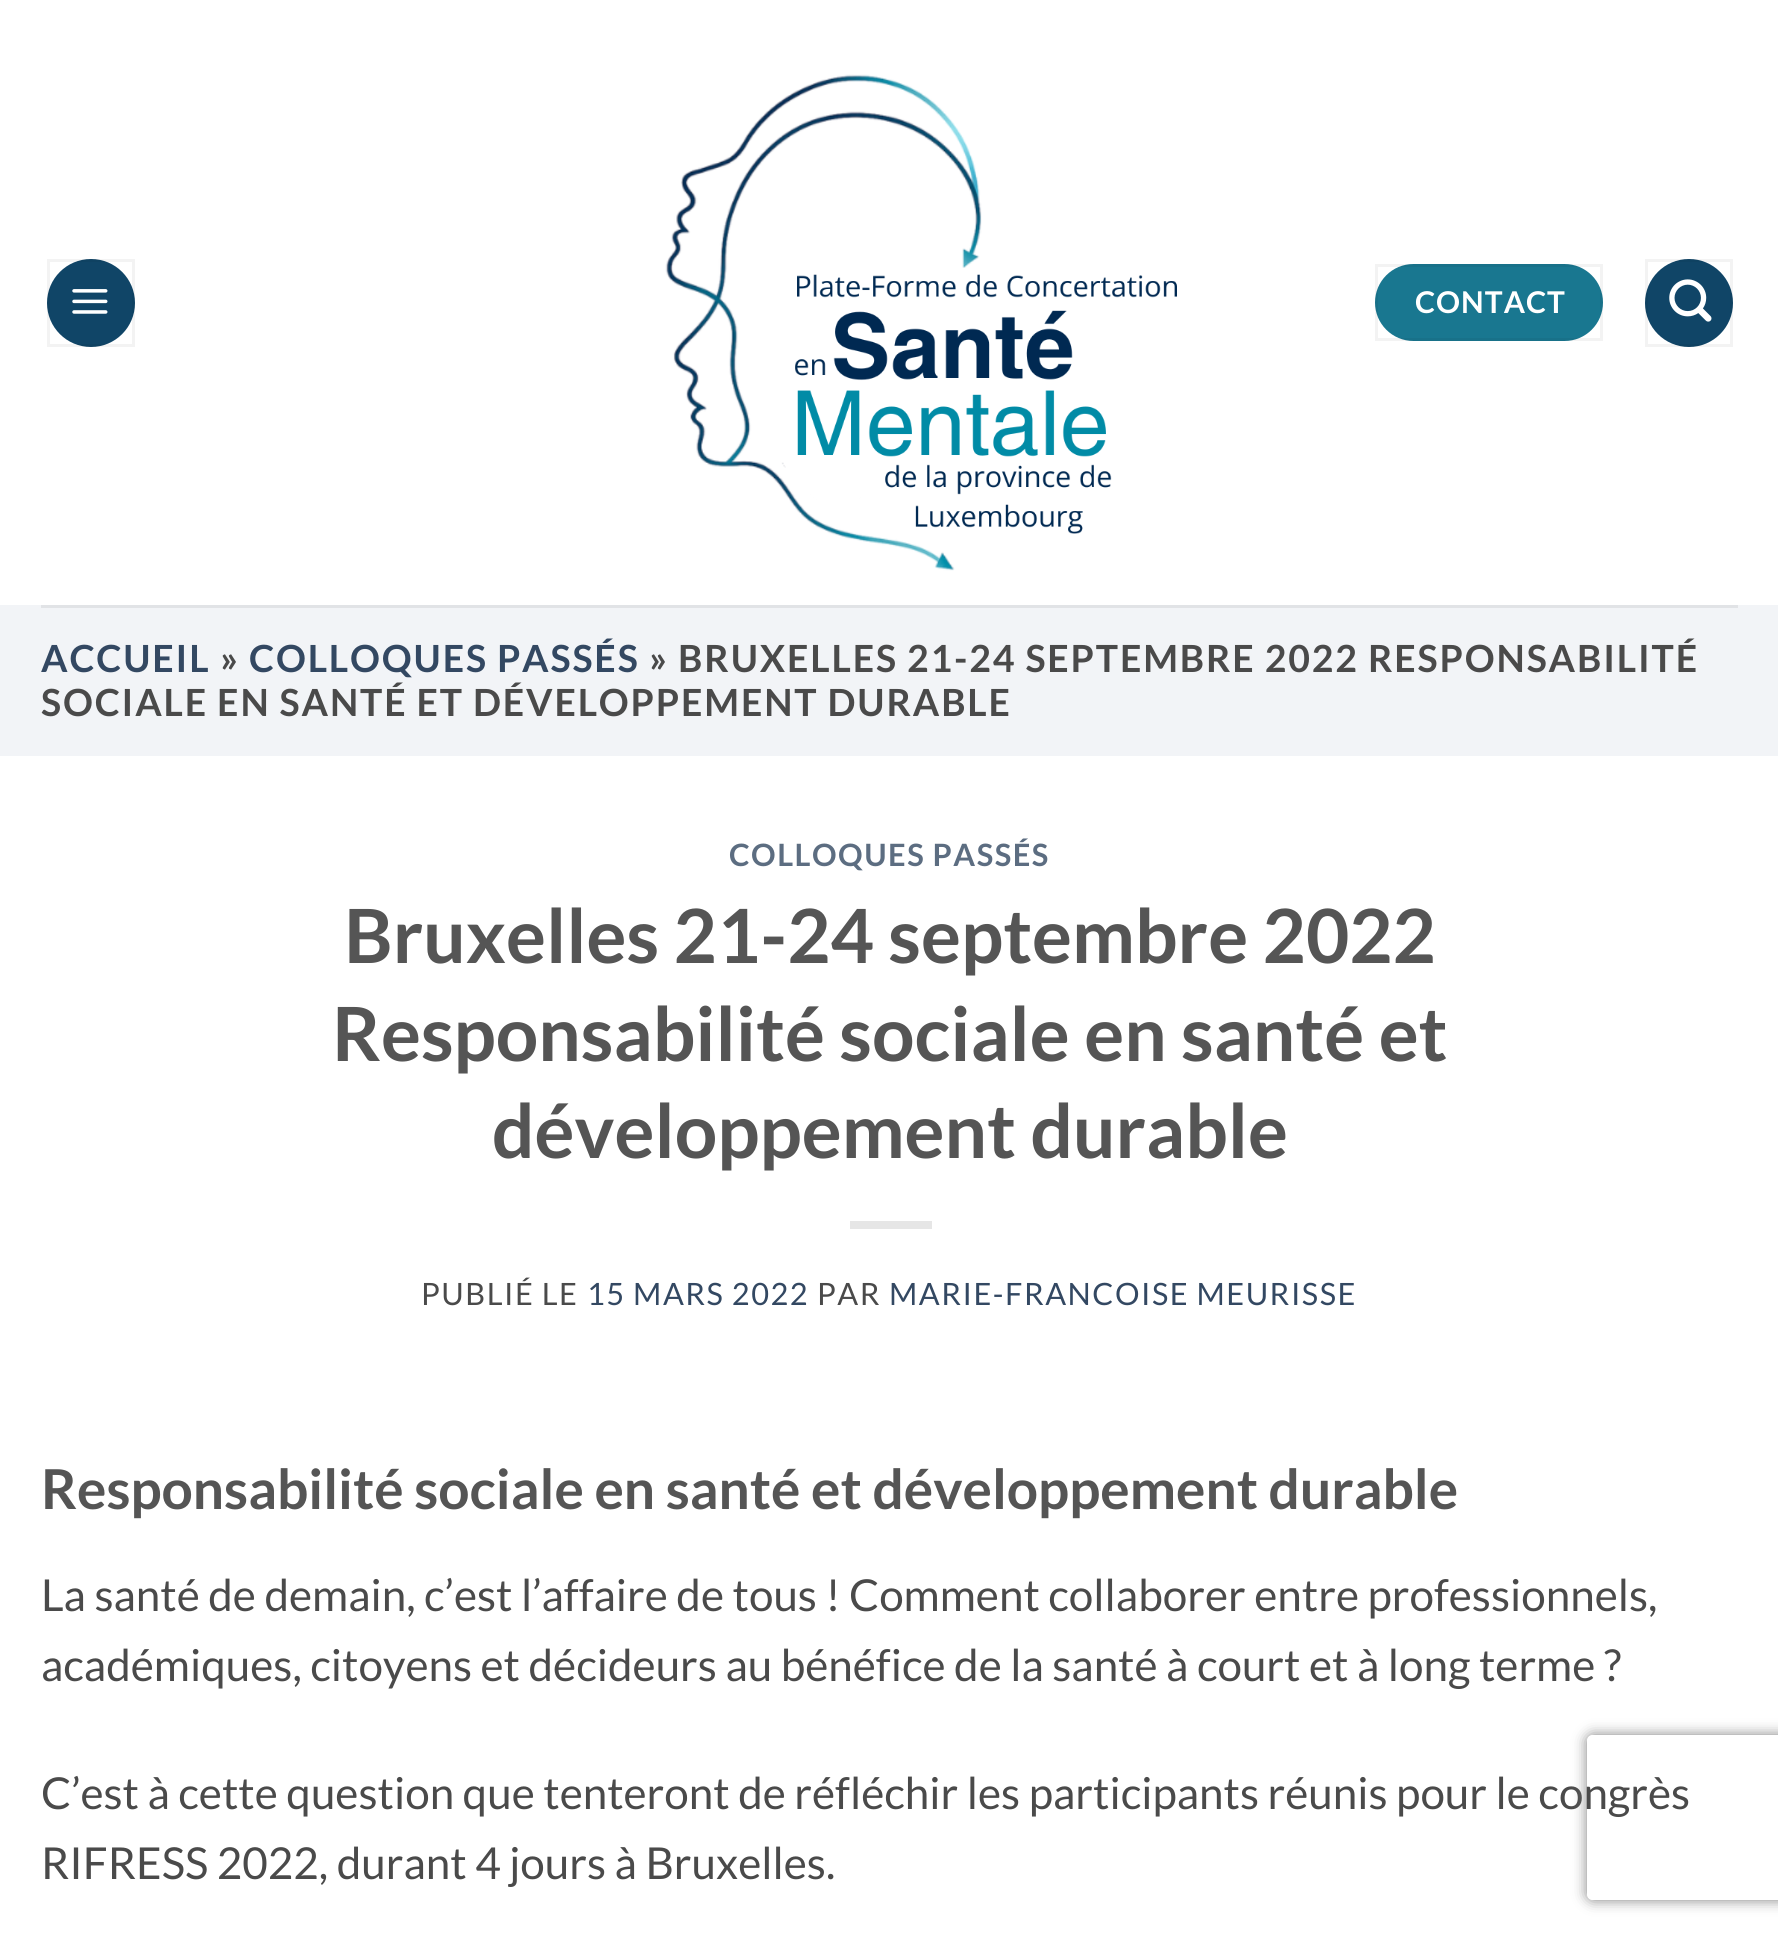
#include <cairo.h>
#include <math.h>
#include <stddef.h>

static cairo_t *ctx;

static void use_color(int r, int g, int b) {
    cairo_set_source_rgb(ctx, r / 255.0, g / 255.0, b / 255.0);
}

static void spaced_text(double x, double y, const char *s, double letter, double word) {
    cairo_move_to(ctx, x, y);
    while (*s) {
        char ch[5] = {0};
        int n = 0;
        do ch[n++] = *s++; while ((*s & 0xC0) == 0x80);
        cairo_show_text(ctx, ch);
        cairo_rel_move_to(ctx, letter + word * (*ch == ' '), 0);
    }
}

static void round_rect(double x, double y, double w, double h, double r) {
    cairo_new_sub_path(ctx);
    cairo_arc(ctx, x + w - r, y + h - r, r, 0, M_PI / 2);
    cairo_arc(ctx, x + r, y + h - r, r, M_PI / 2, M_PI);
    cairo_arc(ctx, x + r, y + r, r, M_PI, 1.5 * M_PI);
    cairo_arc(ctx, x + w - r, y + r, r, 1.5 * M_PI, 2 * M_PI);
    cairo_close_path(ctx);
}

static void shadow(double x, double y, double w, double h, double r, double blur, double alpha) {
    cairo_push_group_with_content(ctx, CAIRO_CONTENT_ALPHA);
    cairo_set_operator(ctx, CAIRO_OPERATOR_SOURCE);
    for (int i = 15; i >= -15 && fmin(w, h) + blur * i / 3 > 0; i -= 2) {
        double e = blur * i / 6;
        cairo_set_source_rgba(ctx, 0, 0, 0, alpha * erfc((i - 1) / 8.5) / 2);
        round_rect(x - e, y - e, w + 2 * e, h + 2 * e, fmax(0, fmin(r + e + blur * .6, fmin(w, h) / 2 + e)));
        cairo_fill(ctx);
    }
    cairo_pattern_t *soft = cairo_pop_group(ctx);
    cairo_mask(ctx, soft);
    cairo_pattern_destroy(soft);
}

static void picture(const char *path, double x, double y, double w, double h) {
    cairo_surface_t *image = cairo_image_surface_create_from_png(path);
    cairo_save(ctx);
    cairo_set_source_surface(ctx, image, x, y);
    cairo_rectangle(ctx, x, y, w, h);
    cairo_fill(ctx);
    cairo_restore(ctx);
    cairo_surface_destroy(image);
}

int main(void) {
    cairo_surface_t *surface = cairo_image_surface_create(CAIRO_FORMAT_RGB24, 1778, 1937);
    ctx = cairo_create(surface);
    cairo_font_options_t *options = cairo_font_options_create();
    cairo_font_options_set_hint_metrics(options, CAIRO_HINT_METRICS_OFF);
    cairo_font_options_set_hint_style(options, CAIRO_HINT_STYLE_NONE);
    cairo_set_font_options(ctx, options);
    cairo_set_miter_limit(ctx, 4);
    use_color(255, 255, 255);
    cairo_paint(ctx);
    use_color(16, 69, 103);
    cairo_arc(ctx, 91, 303, 44, 0, 2 * M_PI);
    cairo_fill(ctx);
    cairo_rectangle(ctx, 48.5, 260.5, 85, 85);
    cairo_set_source_rgba(ctx, 0, 0, 0, 0.05);
    cairo_set_line_width(ctx, 3);
    cairo_stroke(ctx);
    picture("img1.png", 72, 289, 36, 25);
    picture("img2.png", 665, 74, 512, 497);
    use_color(25, 119, 144);
    round_rect(1375, 264, 228, 77, 38.5);
    cairo_fill(ctx);
    cairo_rectangle(ctx, 1376.5, 265.5, 225, 74);
    cairo_set_source_rgba(ctx, 0, 0, 0, 0.05);
    cairo_stroke(ctx);
    cairo_select_font_face(ctx, "Lato", CAIRO_FONT_SLANT_NORMAL, CAIRO_FONT_WEIGHT_BOLD);
    cairo_set_font_size(ctx, 30);
    use_color(255, 255, 255);
    spaced_text(1415, 313, "CONTACT", 1, 0);
    use_color(16, 69, 103);
    cairo_new_path(ctx);
    cairo_arc(ctx, 1689, 303, 44, 0, 2 * M_PI);
    cairo_fill(ctx);
    cairo_rectangle(ctx, 1646.5, 260.5, 85, 85);
    cairo_set_source_rgba(ctx, 0, 0, 0, 0.05);
    cairo_stroke(ctx);
    picture("img3.png", 1669, 279, 43, 43);
    use_color(242, 244, 247);
    cairo_rectangle(ctx, 0, 605, 1778, 151);
    cairo_fill(ctx);
    use_color(225, 227, 230);
    cairo_rectangle(ctx, 41, 605, 1697, 3);
    cairo_fill(ctx);
    cairo_set_font_size(ctx, 37.4);
    use_color(51, 72, 98);
    spaced_text(41, 672, "ACCUEIL", 1.85, 0);
    use_color(74, 74, 74);
    spaced_text(220, 672, "»", 1.85, 0);
    use_color(51, 72, 98);
    spaced_text(249, 672, "COLLOQUES PASSÉS", 1.85, 0);
    use_color(74, 74, 74);
    spaced_text(649, 672, "» BRUXELLES 21-24 SEPTEMBRE 2022", 1.85, 0);
    spaced_text(1368, 672, "RESPONSABILITÉ", 1.85, 0);
    spaced_text(41, 716, "SOCIALE EN SANTÉ ET DÉVELOPPEMENT DURABLE", 1.85, 0);
    cairo_set_font_size(ctx, 30.75);
    use_color(92, 109, 129);
    spaced_text(729, 866, "COLLOQUES PASSÉS", 1.5, 0);
    cairo_set_font_size(ctx, 74.75);
    use_color(85, 85, 85);
    cairo_move_to(ctx, 344, 963);
    cairo_show_text(ctx, "Bruxelles 21-24 septembre 2022");
    cairo_move_to(ctx, 332, 1061);
    cairo_show_text(ctx, "Responsabilité sociale en santé et");
    cairo_move_to(ctx, 492, 1158);
    cairo_show_text(ctx, "développement durable");
    use_color(230, 230, 230);
    cairo_rectangle(ctx, 850, 1221, 82, 8);
    cairo_fill(ctx);
    cairo_select_font_face(ctx, "Lato", CAIRO_FONT_SLANT_NORMAL, CAIRO_FONT_WEIGHT_NORMAL);
    cairo_set_font_size(ctx, 30.75);
    use_color(74, 74, 74);
    spaced_text(421, 1305, "PUBLIÉ LE", 1.5, 0);
    use_color(51, 72, 98);
    spaced_text(587, 1305, "15 MARS 2022", 1.5, 0);
    use_color(74, 74, 74);
    spaced_text(817, 1305, "PAR", 1.5, 0);
    use_color(51, 72, 98);
    spaced_text(889, 1305, "MARIE-FRANCOISE MEURISSE", 1.5, 0);
    cairo_select_font_face(ctx, "Lato", CAIRO_FONT_SLANT_NORMAL, CAIRO_FONT_WEIGHT_BOLD);
    cairo_set_font_size(ctx, 55);
    use_color(85, 85, 85);
    cairo_move_to(ctx, 41, 1509);
    cairo_show_text(ctx, "Responsabilité sociale en santé et développement durable");
    cairo_select_font_face(ctx, "Lato", CAIRO_FONT_SLANT_NORMAL, CAIRO_FONT_WEIGHT_NORMAL);
    cairo_set_font_size(ctx, 44);
    use_color(74, 74, 74);
    cairo_move_to(ctx, 41, 1611);
    cairo_show_text(ctx, "La santé de demain, c’est l’affaire de tous ! Comment collaborer entre professionnels,");
    cairo_move_to(ctx, 41, 1681);
    cairo_show_text(ctx, "académiques, citoyens et décideurs au bénéfice de la santé à court et à long terme ?");
    cairo_move_to(ctx, 41, 1809);
    cairo_show_text(ctx, "C’est à cette question que tenteront de réfléchir les participants réunis pour le congrès");
    cairo_move_to(ctx, 41, 1879);
    cairo_show_text(ctx, "RIFRESS 2022, durant 4 jours à Bruxelles.");
    cairo_save(ctx);
    cairo_set_fill_rule(ctx, CAIRO_FILL_RULE_EVEN_ODD);
    cairo_new_path(ctx);
    cairo_move_to(ctx, 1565, 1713);
    cairo_line_to(ctx, 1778, 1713);
    cairo_line_to(ctx, 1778, 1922);
    cairo_line_to(ctx, 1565, 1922);
    cairo_close_path(ctx);
    cairo_move_to(ctx, 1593, 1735);
    cairo_line_to(ctx, 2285, 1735);
    cairo_curve_to(ctx, 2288.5, 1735, 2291, 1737.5, 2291, 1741);
    cairo_line_to(ctx, 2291, 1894);
    cairo_curve_to(ctx, 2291, 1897.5, 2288.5, 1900, 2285, 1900);
    cairo_line_to(ctx, 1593, 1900);
    cairo_curve_to(ctx, 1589.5, 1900, 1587, 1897.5, 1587, 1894);
    cairo_line_to(ctx, 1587, 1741);
    cairo_curve_to(ctx, 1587, 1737.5, 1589.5, 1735, 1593, 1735);
    cairo_close_path(ctx);
    cairo_clip(ctx);
    use_color(128, 128, 128);
    shadow(1587, 1735, 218, 165, 6, 7, 1);
    cairo_restore(ctx);
    cairo_surface_write_to_png(surface, "result.png");
    cairo_font_options_destroy(options);
    cairo_destroy(ctx);
    cairo_surface_destroy(surface);
    return 0;
}
